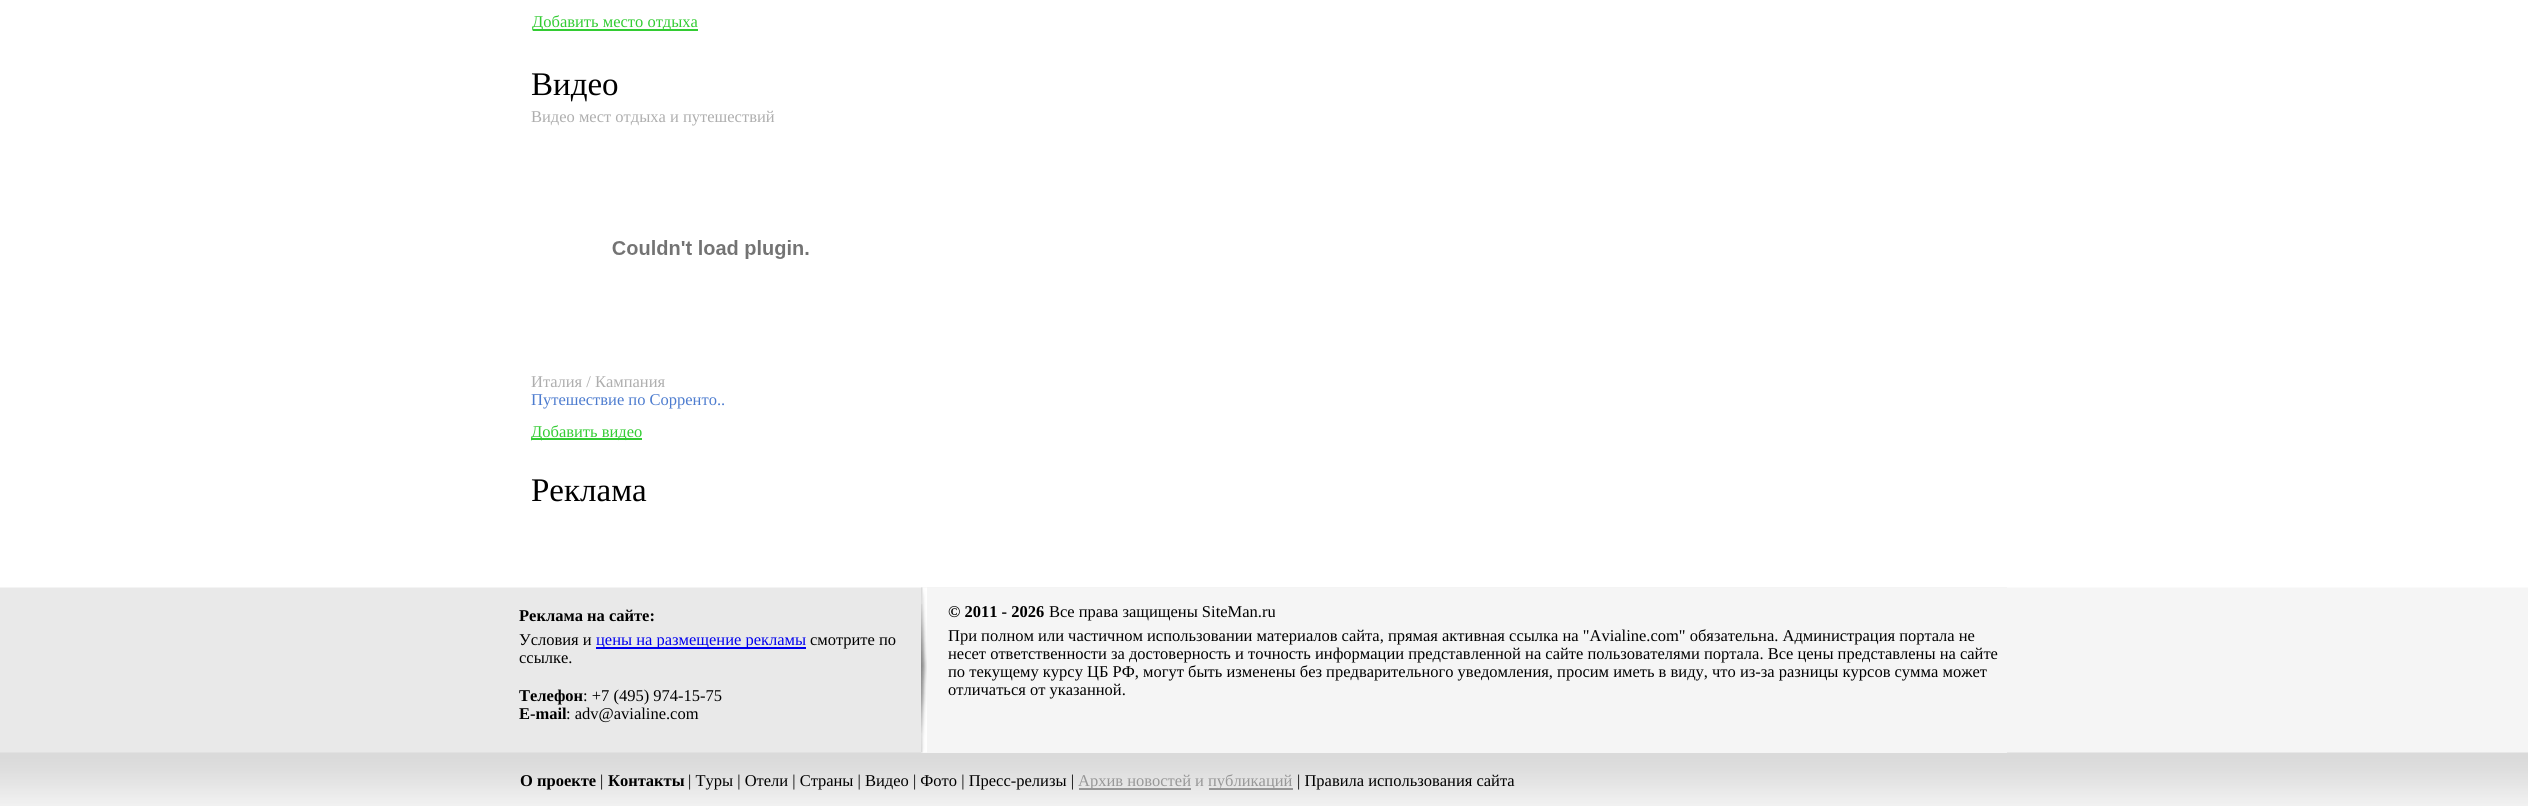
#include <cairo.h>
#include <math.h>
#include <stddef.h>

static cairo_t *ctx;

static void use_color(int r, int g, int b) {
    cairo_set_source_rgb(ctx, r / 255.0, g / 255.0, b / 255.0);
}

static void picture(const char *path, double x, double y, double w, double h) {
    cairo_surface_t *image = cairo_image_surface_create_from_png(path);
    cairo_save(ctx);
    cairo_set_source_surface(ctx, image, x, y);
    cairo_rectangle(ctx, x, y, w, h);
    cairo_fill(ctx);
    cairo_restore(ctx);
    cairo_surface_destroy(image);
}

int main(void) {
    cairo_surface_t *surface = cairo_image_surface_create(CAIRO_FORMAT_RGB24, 2528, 806);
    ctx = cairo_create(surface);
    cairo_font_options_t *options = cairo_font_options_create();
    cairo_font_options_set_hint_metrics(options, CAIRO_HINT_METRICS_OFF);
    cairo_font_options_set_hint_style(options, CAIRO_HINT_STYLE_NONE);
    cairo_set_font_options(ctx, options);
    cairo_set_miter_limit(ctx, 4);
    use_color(255, 255, 255);
    cairo_paint(ctx);
    use_color(51, 204, 51);
    cairo_rectangle(ctx, 533, 29, 165, 2);
    cairo_fill(ctx);
    cairo_select_font_face(ctx, "Liberation Serif", CAIRO_FONT_SLANT_NORMAL, CAIRO_FONT_WEIGHT_NORMAL);
    cairo_set_font_size(ctx, 16.5);
    cairo_move_to(ctx, 532, 27);
    cairo_show_text(ctx, "Добавить место отдыха");
    cairo_set_font_size(ctx, 33);
    use_color(0, 0, 0);
    cairo_move_to(ctx, 531, 95);
    cairo_show_text(ctx, "Видео");
    cairo_set_font_size(ctx, 16.5);
    use_color(174, 174, 174);
    cairo_move_to(ctx, 531, 122);
    cairo_show_text(ctx, "Видео мест отдыха и путешествий");
    picture("img1.png", 612, 240, 197, 19);
    cairo_move_to(ctx, 531, 387);
    cairo_show_text(ctx, "Италия / Кампания");
    use_color(77, 124, 207);
    cairo_move_to(ctx, 531, 405);
    cairo_show_text(ctx, "Путешествие по Сорренто..");
    use_color(51, 204, 51);
    cairo_rectangle(ctx, 531, 438, 111, 2);
    cairo_fill(ctx);
    cairo_move_to(ctx, 531, 437);
    cairo_show_text(ctx, "Добавить видео");
    cairo_set_font_size(ctx, 33);
    use_color(0, 0, 0);
    cairo_move_to(ctx, 531, 501);
    cairo_show_text(ctx, "Реклама");
    picture("img2.png", 0, 587, 507, 219);
    picture("img3.png", 507, 587, 1500, 219);
    cairo_select_font_face(ctx, "Liberation Serif", CAIRO_FONT_SLANT_NORMAL, CAIRO_FONT_WEIGHT_BOLD);
    cairo_set_font_size(ctx, 16.5);
    cairo_move_to(ctx, 519, 621);
    cairo_show_text(ctx, "Реклама на сайте:");
    cairo_select_font_face(ctx, "Liberation Serif", CAIRO_FONT_SLANT_NORMAL, CAIRO_FONT_WEIGHT_NORMAL);
    cairo_move_to(ctx, 519, 645);
    cairo_show_text(ctx, "Условия и");
    use_color(0, 0, 238);
    cairo_rectangle(ctx, 596, 647, 210, 2);
    cairo_fill(ctx);
    cairo_move_to(ctx, 596, 645);
    cairo_show_text(ctx, "цены на размещение рекламы");
    use_color(0, 0, 0);
    cairo_move_to(ctx, 810, 645);
    cairo_show_text(ctx, "смотрите по");
    cairo_move_to(ctx, 519, 663);
    cairo_show_text(ctx, "ссылке.");
    cairo_select_font_face(ctx, "Liberation Serif", CAIRO_FONT_SLANT_NORMAL, CAIRO_FONT_WEIGHT_BOLD);
    cairo_move_to(ctx, 519, 701);
    cairo_show_text(ctx, "Телефон");
    cairo_select_font_face(ctx, "Liberation Serif", CAIRO_FONT_SLANT_NORMAL, CAIRO_FONT_WEIGHT_NORMAL);
    cairo_move_to(ctx, 583, 701);
    cairo_show_text(ctx, ": +7 (495) 974-15-75");
    cairo_select_font_face(ctx, "Liberation Serif", CAIRO_FONT_SLANT_NORMAL, CAIRO_FONT_WEIGHT_BOLD);
    cairo_move_to(ctx, 519, 719);
    cairo_show_text(ctx, "E-mail");
    cairo_select_font_face(ctx, "Liberation Serif", CAIRO_FONT_SLANT_NORMAL, CAIRO_FONT_WEIGHT_NORMAL);
    cairo_move_to(ctx, 566, 719);
    cairo_show_text(ctx, ": adv@avialine.com");
    use_color(245, 245, 245);
    cairo_rectangle(ctx, 921, 752, 6, 1);
    cairo_fill(ctx);
    picture("img4.png", 921, 587, 6, 166);
    cairo_rectangle(ctx, 927, 588, 1080, 165);
    cairo_fill(ctx);
    cairo_select_font_face(ctx, "Liberation Serif", CAIRO_FONT_SLANT_NORMAL, CAIRO_FONT_WEIGHT_BOLD);
    use_color(0, 0, 0);
    cairo_move_to(ctx, 948, 617);
    cairo_show_text(ctx, "© 2011 - 2026");
    cairo_select_font_face(ctx, "Liberation Serif", CAIRO_FONT_SLANT_NORMAL, CAIRO_FONT_WEIGHT_NORMAL);
    cairo_move_to(ctx, 1049, 617);
    cairo_show_text(ctx, "Все права защищены SiteMan.ru");
    cairo_move_to(ctx, 948, 641);
    cairo_show_text(ctx, "При полном или частичном использовании материалов сайта, прямая активная ссылка на \"Avialine.com\" обязательна. Администрация портала не");
    cairo_move_to(ctx, 948, 659);
    cairo_show_text(ctx, "несет ответственности за достоверность и точность информации представленной на сайте пользователями портала. Все цены представлены на сайте");
    cairo_move_to(ctx, 948, 677);
    cairo_show_text(ctx, "по текущему курсу ЦБ РФ, могут быть изменены без предварительного уведомления, просим иметь в виду, что из-за разницы курсов сумма может");
    cairo_move_to(ctx, 948, 695);
    cairo_show_text(ctx, "отличаться от указанной.");
    cairo_select_font_face(ctx, "Liberation Serif", CAIRO_FONT_SLANT_NORMAL, CAIRO_FONT_WEIGHT_BOLD);
    cairo_move_to(ctx, 520, 786);
    cairo_show_text(ctx, "О проекте");
    cairo_select_font_face(ctx, "Liberation Serif", CAIRO_FONT_SLANT_NORMAL, CAIRO_FONT_WEIGHT_NORMAL);
    cairo_move_to(ctx, 600, 786);
    cairo_show_text(ctx, "|");
    cairo_select_font_face(ctx, "Liberation Serif", CAIRO_FONT_SLANT_NORMAL, CAIRO_FONT_WEIGHT_BOLD);
    cairo_move_to(ctx, 608, 786);
    cairo_show_text(ctx, "Контакты");
    cairo_select_font_face(ctx, "Liberation Serif", CAIRO_FONT_SLANT_NORMAL, CAIRO_FONT_WEIGHT_NORMAL);
    cairo_move_to(ctx, 688, 786);
    cairo_show_text(ctx, "| Туры | Отели | Страны | Видео | Фото | Пресс-релизы |");
    use_color(151, 151, 151);
    cairo_rectangle(ctx, 1079, 788, 112, 2);
    cairo_fill(ctx);
    cairo_move_to(ctx, 1078, 786);
    cairo_show_text(ctx, "Архив новостей и");
    cairo_rectangle(ctx, 1209, 788, 84, 2);
    cairo_fill(ctx);
    cairo_move_to(ctx, 1208, 786);
    cairo_show_text(ctx, "публикаций");
    use_color(0, 0, 0);
    cairo_move_to(ctx, 1297, 786);
    cairo_show_text(ctx, "| Правила использования сайта");
    picture("img5.png", 2007, 587, 521, 219);
    cairo_surface_write_to_png(surface, "result.png");
    cairo_font_options_destroy(options);
    cairo_destroy(ctx);
    cairo_surface_destroy(surface);
    return 0;
}
